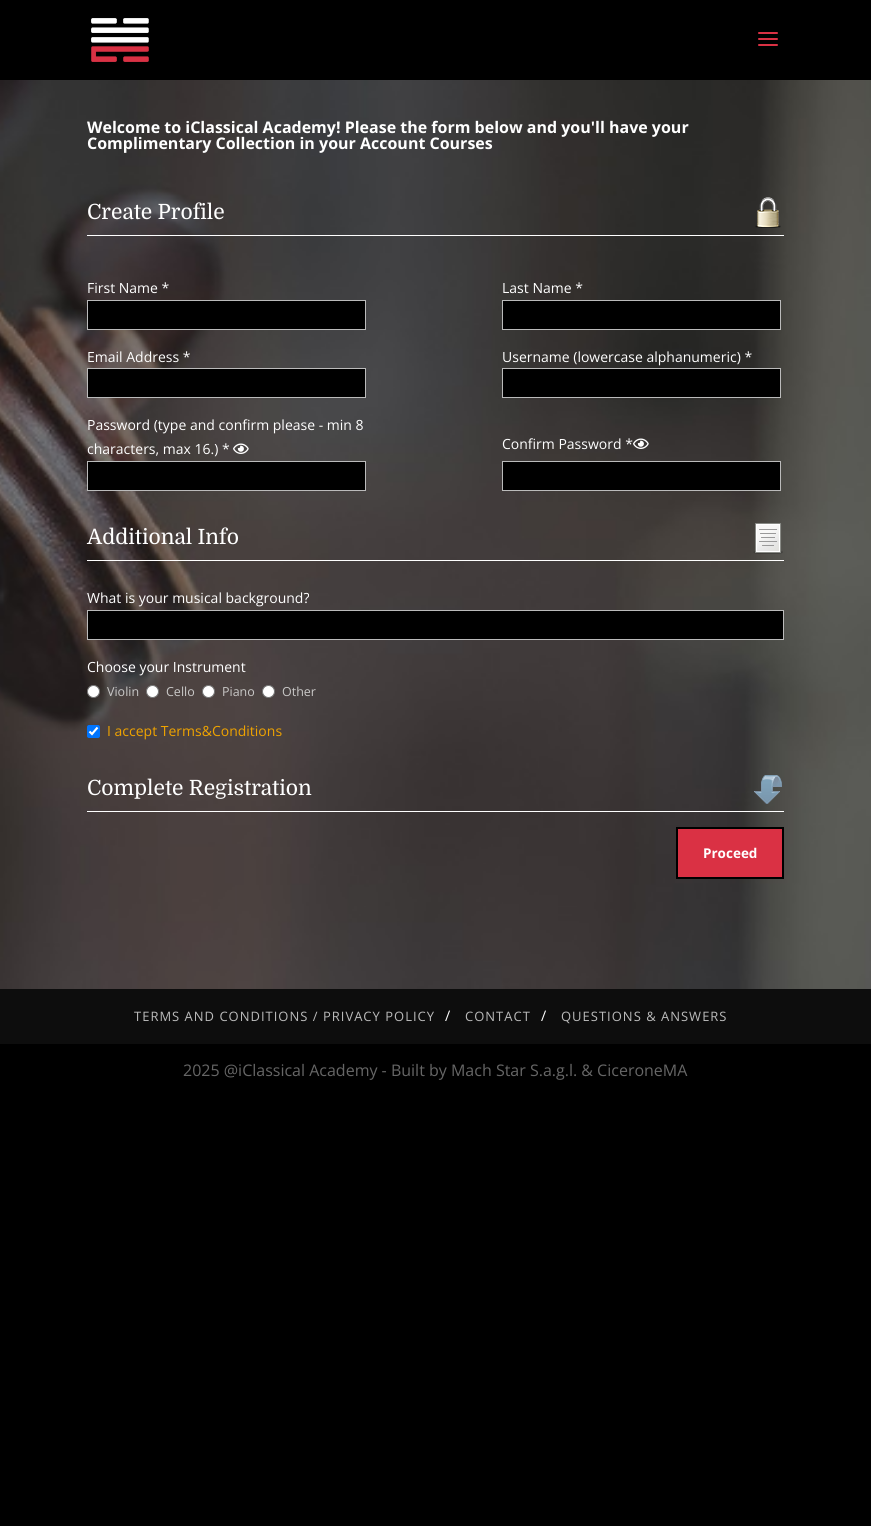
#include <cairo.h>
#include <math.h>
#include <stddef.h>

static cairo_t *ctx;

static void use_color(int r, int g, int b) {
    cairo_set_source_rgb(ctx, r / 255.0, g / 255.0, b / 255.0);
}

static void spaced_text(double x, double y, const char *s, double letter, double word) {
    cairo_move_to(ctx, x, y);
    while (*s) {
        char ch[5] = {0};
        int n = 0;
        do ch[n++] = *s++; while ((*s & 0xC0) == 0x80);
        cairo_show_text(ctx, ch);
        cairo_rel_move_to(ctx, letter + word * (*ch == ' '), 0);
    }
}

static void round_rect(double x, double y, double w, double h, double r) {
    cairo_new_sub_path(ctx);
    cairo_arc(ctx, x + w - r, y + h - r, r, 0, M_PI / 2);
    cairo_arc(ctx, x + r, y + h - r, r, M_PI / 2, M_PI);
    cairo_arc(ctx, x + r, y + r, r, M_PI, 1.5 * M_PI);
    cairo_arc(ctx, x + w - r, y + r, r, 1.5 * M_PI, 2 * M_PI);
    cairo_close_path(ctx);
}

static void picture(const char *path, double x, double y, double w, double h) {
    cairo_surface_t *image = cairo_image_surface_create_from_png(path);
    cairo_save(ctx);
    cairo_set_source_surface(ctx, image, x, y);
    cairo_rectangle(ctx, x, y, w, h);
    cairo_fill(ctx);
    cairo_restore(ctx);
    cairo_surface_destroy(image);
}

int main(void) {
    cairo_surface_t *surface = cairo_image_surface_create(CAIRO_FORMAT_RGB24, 871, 1526);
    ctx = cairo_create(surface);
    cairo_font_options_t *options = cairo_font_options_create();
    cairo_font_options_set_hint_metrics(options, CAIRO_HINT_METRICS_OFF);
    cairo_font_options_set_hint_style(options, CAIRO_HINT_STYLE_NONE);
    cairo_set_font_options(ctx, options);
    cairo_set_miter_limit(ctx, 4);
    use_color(0, 0, 0);
    cairo_paint(ctx);
    picture("img1.png", 91, 18, 58, 44);
    picture("img2.png", 758, 32, 20, 14);
    picture("img3.png", 0, 80, 871, 909);
    cairo_select_font_face(ctx, "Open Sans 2", CAIRO_FONT_SLANT_NORMAL, CAIRO_FONT_WEIGHT_BOLD);
    cairo_set_font_size(ctx, 16);
    use_color(255, 255, 255);
    cairo_move_to(ctx, 87, 133);
    cairo_show_text(ctx, "Welcome to iClassical Academy! Please the form below and you'll have your");
    cairo_move_to(ctx, 87, 149);
    cairo_show_text(ctx, "Complimentary Collection in your Account Courses");
    picture("img4.png", 755, 197, 26, 31);
    cairo_rectangle(ctx, 87, 235, 697, 1);
    cairo_fill(ctx);
    cairo_select_font_face(ctx, "Domine", CAIRO_FONT_SLANT_NORMAL, CAIRO_FONT_WEIGHT_NORMAL);
    cairo_set_font_size(ctx, 21);
    cairo_move_to(ctx, 87, 219);
    cairo_show_text(ctx, "Create Profile");
    cairo_select_font_face(ctx, "Open Sans", CAIRO_FONT_SLANT_NORMAL, CAIRO_FONT_WEIGHT_NORMAL);
    cairo_set_font_size(ctx, 14);
    cairo_move_to(ctx, 87, 293);
    cairo_show_text(ctx, "First Name *");
    use_color(0, 0, 0);
    cairo_rectangle(ctx, 87.5, 300.5, 278, 29);
    cairo_fill_preserve(ctx);
    use_color(187, 187, 187);
    cairo_set_line_width(ctx, 1);
    cairo_stroke(ctx);
    use_color(255, 255, 255);
    cairo_move_to(ctx, 502, 293);
    cairo_show_text(ctx, "Last Name *");
    use_color(0, 0, 0);
    cairo_rectangle(ctx, 502.5, 300.5, 278, 29);
    cairo_fill_preserve(ctx);
    use_color(187, 187, 187);
    cairo_stroke(ctx);
    use_color(255, 255, 255);
    cairo_move_to(ctx, 87, 362);
    cairo_show_text(ctx, "Email Address *");
    use_color(0, 0, 0);
    cairo_rectangle(ctx, 87.5, 368.5, 278, 29);
    cairo_fill_preserve(ctx);
    use_color(187, 187, 187);
    cairo_stroke(ctx);
    use_color(255, 255, 255);
    cairo_move_to(ctx, 502, 362);
    cairo_show_text(ctx, "Username (lowercase alphanumeric) *");
    use_color(0, 0, 0);
    cairo_rectangle(ctx, 502.5, 368.5, 278, 29);
    cairo_fill_preserve(ctx);
    use_color(187, 187, 187);
    cairo_stroke(ctx);
    use_color(255, 255, 255);
    cairo_move_to(ctx, 87, 430);
    cairo_show_text(ctx, "Password (type and confirm please - min 8");
    cairo_move_to(ctx, 87, 454);
    cairo_show_text(ctx, "characters, max 16.) *");
    picture("img5.png", 233, 443, 16, 11);
    use_color(0, 0, 0);
    cairo_rectangle(ctx, 87.5, 461.5, 278, 29);
    cairo_fill_preserve(ctx);
    use_color(187, 187, 187);
    cairo_stroke(ctx);
    use_color(255, 255, 255);
    cairo_move_to(ctx, 502, 449);
    cairo_show_text(ctx, "Confirm Password *");
    picture("img6.png", 633, 438, 16, 11);
    use_color(0, 0, 0);
    cairo_rectangle(ctx, 502.5, 461.5, 278, 29);
    cairo_fill_preserve(ctx);
    use_color(187, 187, 187);
    cairo_stroke(ctx);
    picture("img7.png", 753, 523, 30, 31);
    use_color(255, 255, 255);
    cairo_rectangle(ctx, 87, 560, 697, 1);
    cairo_fill(ctx);
    cairo_select_font_face(ctx, "Domine", CAIRO_FONT_SLANT_NORMAL, CAIRO_FONT_WEIGHT_NORMAL);
    cairo_set_font_size(ctx, 21);
    cairo_move_to(ctx, 87, 544);
    cairo_show_text(ctx, "Additional Info");
    cairo_select_font_face(ctx, "Open Sans", CAIRO_FONT_SLANT_NORMAL, CAIRO_FONT_WEIGHT_NORMAL);
    cairo_set_font_size(ctx, 14);
    cairo_move_to(ctx, 87, 603);
    cairo_show_text(ctx, "What is your musical background?");
    use_color(0, 0, 0);
    cairo_rectangle(ctx, 87.5, 610.5, 696, 29);
    cairo_fill_preserve(ctx);
    use_color(187, 187, 187);
    cairo_stroke(ctx);
    use_color(255, 255, 255);
    cairo_move_to(ctx, 87, 672);
    cairo_show_text(ctx, "Choose your Instrument");
    cairo_new_path(ctx);
    cairo_arc(ctx, 93.5, 691.5, 6, 0, 2 * M_PI);
    cairo_fill_preserve(ctx);
    use_color(118, 118, 118);
    cairo_stroke(ctx);
    cairo_set_font_size(ctx, 12.5);
    use_color(201, 200, 199);
    cairo_move_to(ctx, 107, 696);
    cairo_show_text(ctx, "Violin");
    use_color(255, 255, 255);
    cairo_new_path(ctx);
    cairo_arc(ctx, 152.5, 691.5, 6, 0, 2 * M_PI);
    cairo_fill_preserve(ctx);
    use_color(118, 118, 118);
    cairo_stroke(ctx);
    use_color(201, 200, 199);
    cairo_move_to(ctx, 166, 696);
    cairo_show_text(ctx, "Cello");
    use_color(255, 255, 255);
    cairo_new_path(ctx);
    cairo_arc(ctx, 208.5, 691.5, 6, 0, 2 * M_PI);
    cairo_fill_preserve(ctx);
    use_color(118, 118, 118);
    cairo_stroke(ctx);
    use_color(201, 200, 199);
    cairo_move_to(ctx, 222, 696);
    cairo_show_text(ctx, "Piano");
    use_color(255, 255, 255);
    cairo_new_path(ctx);
    cairo_arc(ctx, 268.5, 691.5, 6, 0, 2 * M_PI);
    cairo_fill_preserve(ctx);
    use_color(118, 118, 118);
    cairo_stroke(ctx);
    use_color(201, 200, 199);
    cairo_move_to(ctx, 282, 696);
    cairo_show_text(ctx, "Other");
    use_color(0, 117, 255);
    round_rect(87, 725, 13, 13, 2);
    cairo_fill(ctx);
    cairo_new_path(ctx);
    cairo_move_to(ctx, 89.5, 731.5);
    cairo_line_to(ctx, 92, 734);
    cairo_line_to(ctx, 97.5, 727.5);
    use_color(255, 255, 255);
    cairo_set_line_width(ctx, 2.1);
    cairo_stroke(ctx);
    cairo_set_font_size(ctx, 14);
    use_color(239, 163, 0);
    cairo_move_to(ctx, 107, 736);
    cairo_show_text(ctx, "I accept Terms&Conditions");
    picture("img8.png", 754, 775, 28, 29);
    use_color(255, 255, 255);
    cairo_rectangle(ctx, 87, 811, 697, 1);
    cairo_fill(ctx);
    cairo_select_font_face(ctx, "Domine", CAIRO_FONT_SLANT_NORMAL, CAIRO_FONT_WEIGHT_NORMAL);
    cairo_set_font_size(ctx, 21);
    cairo_move_to(ctx, 87, 795);
    cairo_show_text(ctx, "Complete Registration");
    use_color(218, 49, 68);
    cairo_rectangle(ctx, 677, 828, 106, 50);
    cairo_fill_preserve(ctx);
    use_color(0, 0, 0);
    cairo_set_line_width(ctx, 2);
    cairo_stroke(ctx);
    cairo_select_font_face(ctx, "Open Sans 2", CAIRO_FONT_SLANT_NORMAL, CAIRO_FONT_WEIGHT_BOLD);
    cairo_set_font_size(ctx, 13.5);
    use_color(255, 255, 255);
    cairo_move_to(ctx, 703, 858);
    cairo_show_text(ctx, "Proceed");
    use_color(13, 13, 13);
    cairo_rectangle(ctx, 0, 989, 871, 55);
    cairo_fill(ctx);
    cairo_select_font_face(ctx, "Open Sans", CAIRO_FONT_SLANT_NORMAL, CAIRO_FONT_WEIGHT_NORMAL);
    cairo_set_font_size(ctx, 13);
    use_color(187, 187, 187);
    spaced_text(134, 1021, "TERMS AND CONDITIONS / PRIVACY POLICY", 1, 0);
    cairo_select_font_face(ctx, "Open Sans", CAIRO_FONT_SLANT_NORMAL, CAIRO_FONT_WEIGHT_BOLD);
    cairo_set_font_size(ctx, 14);
    use_color(255, 255, 255);
    spaced_text(445, 1021, "/", 1, 0);
    cairo_select_font_face(ctx, "Open Sans", CAIRO_FONT_SLANT_NORMAL, CAIRO_FONT_WEIGHT_NORMAL);
    cairo_set_font_size(ctx, 13);
    use_color(187, 187, 187);
    spaced_text(465, 1021, "CONTACT", 1, 0);
    cairo_select_font_face(ctx, "Open Sans", CAIRO_FONT_SLANT_NORMAL, CAIRO_FONT_WEIGHT_BOLD);
    cairo_set_font_size(ctx, 14);
    use_color(255, 255, 255);
    spaced_text(541, 1021, "/", 1, 0);
    cairo_select_font_face(ctx, "Open Sans", CAIRO_FONT_SLANT_NORMAL, CAIRO_FONT_WEIGHT_NORMAL);
    cairo_set_font_size(ctx, 13);
    use_color(187, 187, 187);
    spaced_text(561, 1021, "QUESTIONS & ANSWERS", 1, 0);
    cairo_set_font_size(ctx, 16);
    use_color(102, 102, 102);
    cairo_move_to(ctx, 183, 1076);
    cairo_show_text(ctx, "2025 @iClassical Academy - Built by Mach Star S.a.g.l. & CiceroneMA");
    cairo_surface_write_to_png(surface, "result.png");
    cairo_font_options_destroy(options);
    cairo_destroy(ctx);
    cairo_surface_destroy(surface);
    return 0;
}
